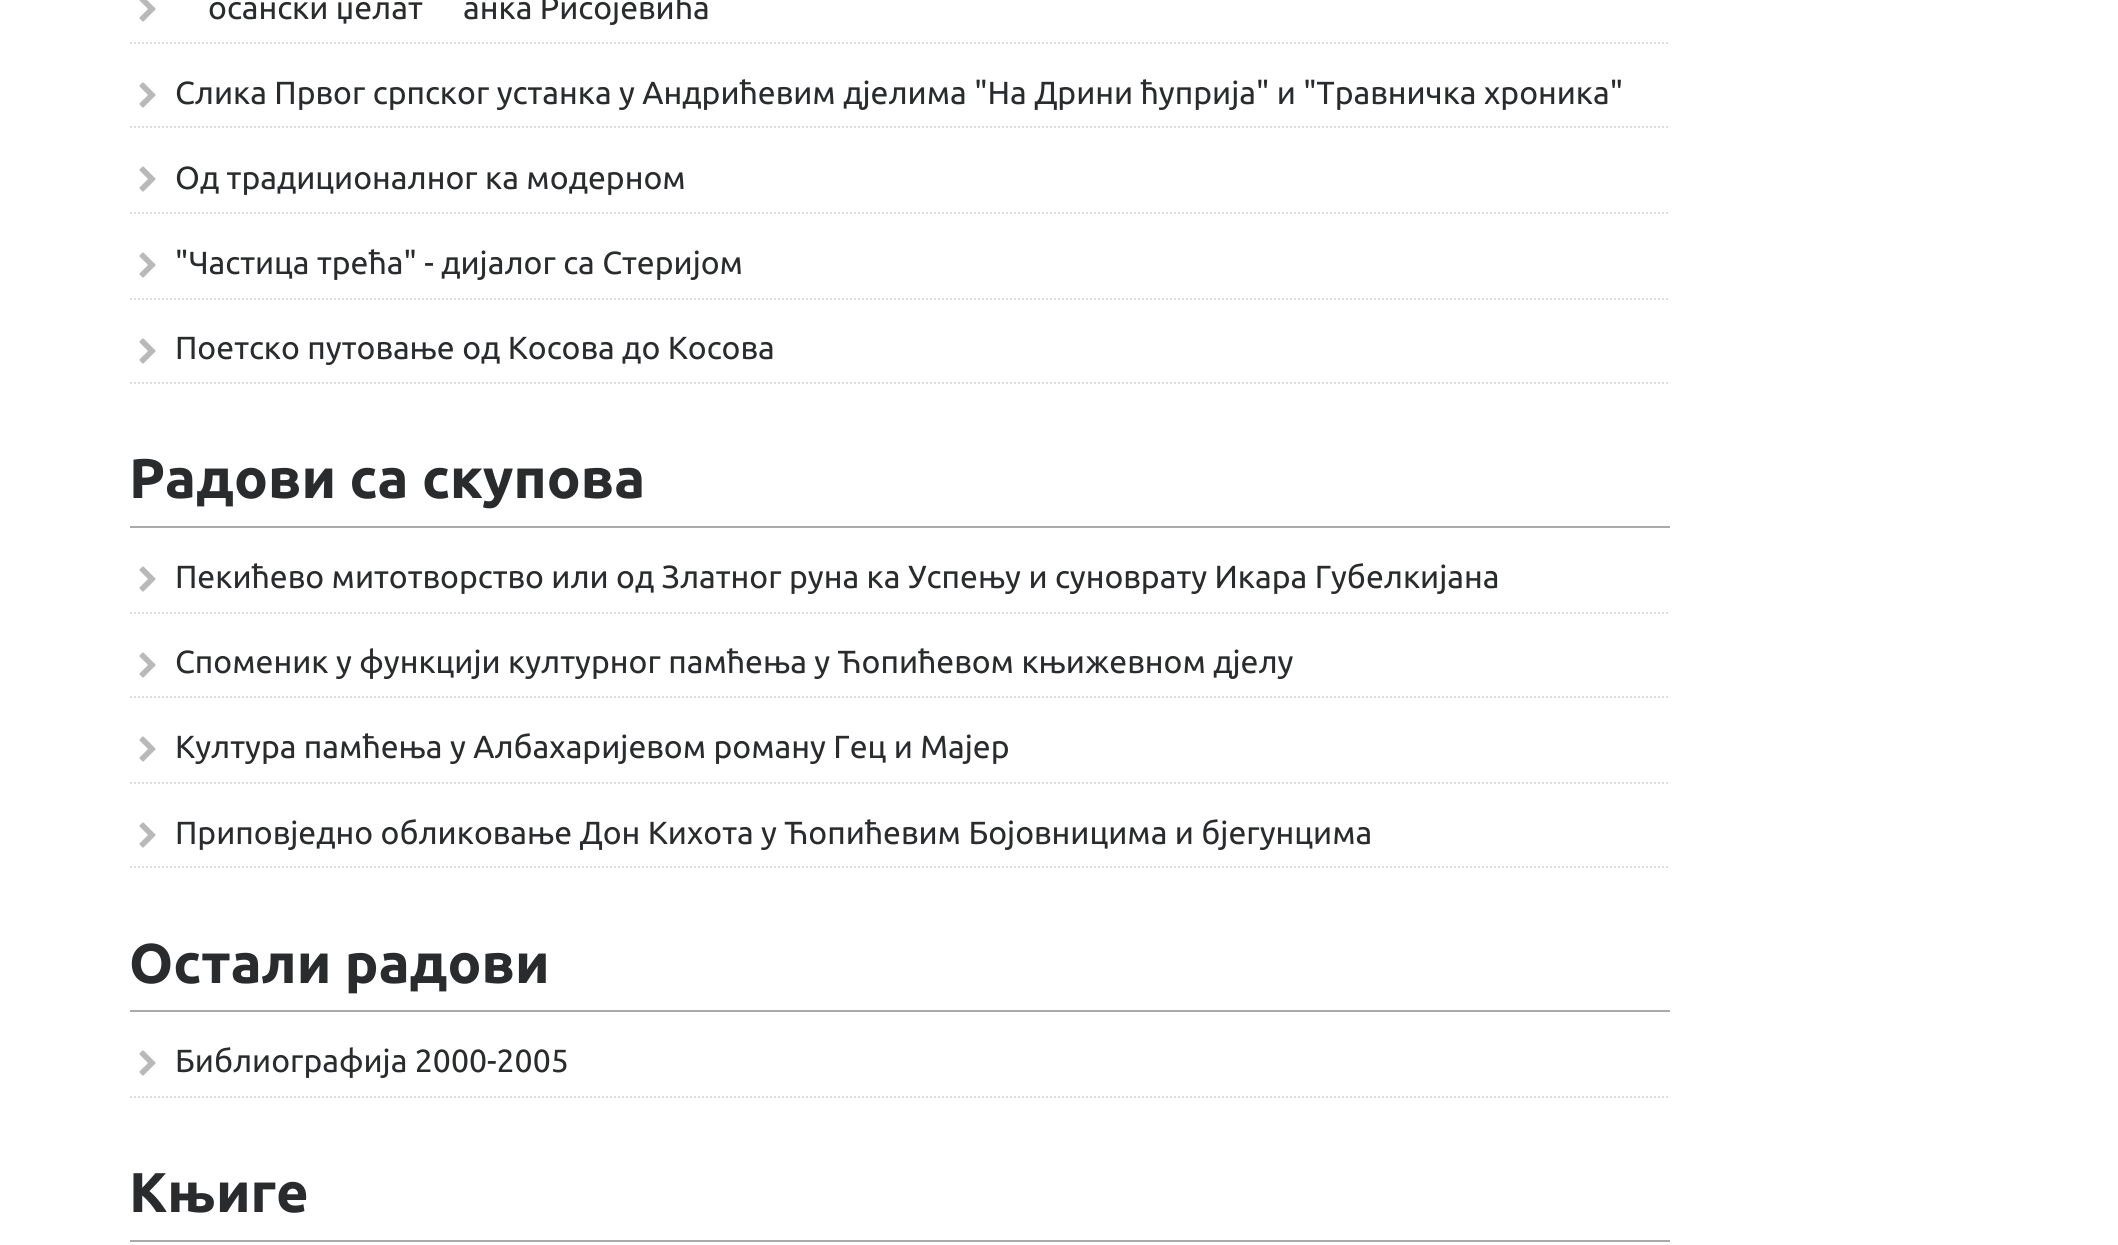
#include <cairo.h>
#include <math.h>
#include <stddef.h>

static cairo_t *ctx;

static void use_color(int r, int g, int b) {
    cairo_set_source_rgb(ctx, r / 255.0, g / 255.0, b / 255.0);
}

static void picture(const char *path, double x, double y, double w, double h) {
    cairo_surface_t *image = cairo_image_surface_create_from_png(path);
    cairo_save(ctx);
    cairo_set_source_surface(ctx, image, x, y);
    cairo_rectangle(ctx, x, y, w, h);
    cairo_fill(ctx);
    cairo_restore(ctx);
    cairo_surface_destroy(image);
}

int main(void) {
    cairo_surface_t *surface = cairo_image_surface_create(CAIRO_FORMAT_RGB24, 2118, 1245);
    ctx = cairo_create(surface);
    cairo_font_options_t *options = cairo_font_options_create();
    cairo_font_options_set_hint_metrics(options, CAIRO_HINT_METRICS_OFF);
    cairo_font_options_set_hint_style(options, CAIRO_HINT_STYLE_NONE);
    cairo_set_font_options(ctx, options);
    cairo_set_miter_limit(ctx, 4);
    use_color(255, 255, 255);
    cairo_paint(ctx);
    cairo_new_path(ctx);
    cairo_move_to(ctx, 130, 43);
    cairo_line_to(ctx, 1670, 43);
    use_color(221, 221, 221);
    cairo_set_dash(ctx, (double[]){2, 2}, 2, 0);
    cairo_stroke(ctx);
    picture("img1.png", 139, 0, 17, 22);
    cairo_select_font_face(ctx, "Ubuntu", CAIRO_FONT_SLANT_NORMAL, CAIRO_FONT_WEIGHT_NORMAL);
    cairo_set_font_size(ctx, 32);
    use_color(41, 43, 44);
    cairo_move_to(ctx, 208, 19);
    cairo_show_text(ctx, "осански џелат");
    cairo_move_to(ctx, 463, 19);
    cairo_show_text(ctx, "анка Рисојевића");
    cairo_new_path(ctx);
    cairo_move_to(ctx, 130, 127);
    cairo_line_to(ctx, 1670, 127);
    use_color(221, 221, 221);
    cairo_stroke(ctx);
    picture("img2.png", 139, 82, 17, 26);
    use_color(41, 43, 44);
    cairo_move_to(ctx, 175, 104);
    cairo_show_text(ctx, "Слика Првог српског устанка у Андрићевим дјелима \"На Дрини ћуприја\" и \"Травничка хроника\"");
    cairo_new_path(ctx);
    cairo_move_to(ctx, 130, 213);
    cairo_line_to(ctx, 1670, 213);
    use_color(221, 221, 221);
    cairo_stroke(ctx);
    picture("img2.png", 139, 166, 17, 26);
    use_color(41, 43, 44);
    cairo_move_to(ctx, 175, 189);
    cairo_show_text(ctx, "Од традиционалног ка модерном");
    cairo_new_path(ctx);
    cairo_move_to(ctx, 130, 299);
    cairo_line_to(ctx, 1670, 299);
    use_color(221, 221, 221);
    cairo_stroke(ctx);
    picture("img2.png", 139, 252, 17, 26);
    use_color(41, 43, 44);
    cairo_move_to(ctx, 175, 274);
    cairo_show_text(ctx, "\"Частица трећа\" - дијалог са Стеријом");
    cairo_new_path(ctx);
    cairo_move_to(ctx, 130, 383);
    cairo_line_to(ctx, 1670, 383);
    use_color(221, 221, 221);
    cairo_stroke(ctx);
    picture("img2.png", 139, 338, 17, 26);
    use_color(41, 43, 44);
    cairo_move_to(ctx, 175, 359);
    cairo_show_text(ctx, "Поетско путовање од Косова до Косова");
    use_color(170, 170, 170);
    cairo_rectangle(ctx, 130, 526, 1540, 2);
    cairo_fill(ctx);
    cairo_select_font_face(ctx, "Ubuntu", CAIRO_FONT_SLANT_NORMAL, CAIRO_FONT_WEIGHT_BOLD);
    cairo_set_font_size(ctx, 56);
    use_color(41, 43, 44);
    cairo_move_to(ctx, 129, 498);
    cairo_show_text(ctx, "Радови са скупова");
    cairo_new_path(ctx);
    cairo_move_to(ctx, 130, 613);
    cairo_line_to(ctx, 1670, 613);
    use_color(221, 221, 221);
    cairo_stroke(ctx);
    picture("img2.png", 139, 566, 17, 26);
    cairo_select_font_face(ctx, "Ubuntu", CAIRO_FONT_SLANT_NORMAL, CAIRO_FONT_WEIGHT_NORMAL);
    cairo_set_font_size(ctx, 32);
    use_color(41, 43, 44);
    cairo_move_to(ctx, 175, 588);
    cairo_show_text(ctx, "Пекићево митотворство или од Златног руна ка Успењу и суноврату Икара Губелкијана");
    cairo_new_path(ctx);
    cairo_move_to(ctx, 130, 697);
    cairo_line_to(ctx, 1670, 697);
    use_color(221, 221, 221);
    cairo_stroke(ctx);
    picture("img2.png", 139, 652, 17, 26);
    use_color(41, 43, 44);
    cairo_move_to(ctx, 175, 673);
    cairo_show_text(ctx, "Споменик у функцији културног памћења у Ћопићевом књижевном дјелу");
    cairo_new_path(ctx);
    cairo_move_to(ctx, 130, 783);
    cairo_line_to(ctx, 1670, 783);
    use_color(221, 221, 221);
    cairo_stroke(ctx);
    picture("img2.png", 139, 736, 17, 26);
    use_color(41, 43, 44);
    cairo_move_to(ctx, 175, 758);
    cairo_show_text(ctx, "Култура памћења у Албахаријевом роману Гец и Мајер");
    cairo_new_path(ctx);
    cairo_move_to(ctx, 130, 867);
    cairo_line_to(ctx, 1670, 867);
    use_color(221, 221, 221);
    cairo_stroke(ctx);
    picture("img2.png", 139, 822, 17, 26);
    use_color(41, 43, 44);
    cairo_move_to(ctx, 175, 844);
    cairo_show_text(ctx, "Приповједно обликовање Дон Кихота у Ћопићевим Бојовницима и бјегунцима");
    use_color(170, 170, 170);
    cairo_rectangle(ctx, 130, 1010, 1540, 2);
    cairo_fill(ctx);
    cairo_select_font_face(ctx, "Ubuntu", CAIRO_FONT_SLANT_NORMAL, CAIRO_FONT_WEIGHT_BOLD);
    cairo_set_font_size(ctx, 56);
    use_color(41, 43, 44);
    cairo_move_to(ctx, 129, 983);
    cairo_show_text(ctx, "Остали радови");
    cairo_new_path(ctx);
    cairo_move_to(ctx, 130, 1097);
    cairo_line_to(ctx, 1670, 1097);
    use_color(221, 221, 221);
    cairo_stroke(ctx);
    picture("img2.png", 139, 1050, 17, 26);
    cairo_select_font_face(ctx, "Ubuntu", CAIRO_FONT_SLANT_NORMAL, CAIRO_FONT_WEIGHT_NORMAL);
    cairo_set_font_size(ctx, 32);
    use_color(41, 43, 44);
    cairo_move_to(ctx, 175, 1072);
    cairo_show_text(ctx, "Библиографија 2000-2005");
    use_color(170, 170, 170);
    cairo_rectangle(ctx, 130, 1240, 1540, 2);
    cairo_fill(ctx);
    cairo_select_font_face(ctx, "Ubuntu", CAIRO_FONT_SLANT_NORMAL, CAIRO_FONT_WEIGHT_BOLD);
    cairo_set_font_size(ctx, 56);
    use_color(41, 43, 44);
    cairo_move_to(ctx, 129, 1212);
    cairo_show_text(ctx, "Књиге");
    cairo_surface_write_to_png(surface, "result.png");
    cairo_font_options_destroy(options);
    cairo_destroy(ctx);
    cairo_surface_destroy(surface);
    return 0;
}
